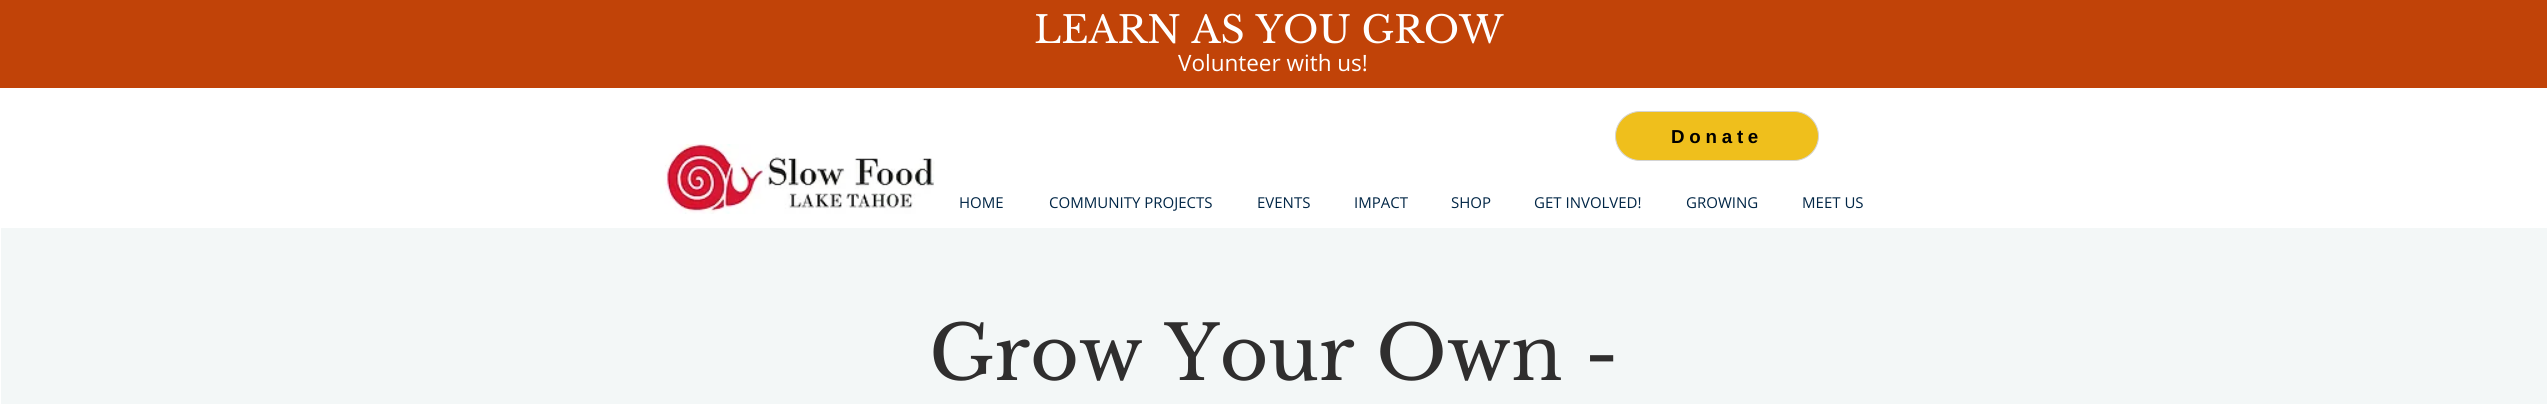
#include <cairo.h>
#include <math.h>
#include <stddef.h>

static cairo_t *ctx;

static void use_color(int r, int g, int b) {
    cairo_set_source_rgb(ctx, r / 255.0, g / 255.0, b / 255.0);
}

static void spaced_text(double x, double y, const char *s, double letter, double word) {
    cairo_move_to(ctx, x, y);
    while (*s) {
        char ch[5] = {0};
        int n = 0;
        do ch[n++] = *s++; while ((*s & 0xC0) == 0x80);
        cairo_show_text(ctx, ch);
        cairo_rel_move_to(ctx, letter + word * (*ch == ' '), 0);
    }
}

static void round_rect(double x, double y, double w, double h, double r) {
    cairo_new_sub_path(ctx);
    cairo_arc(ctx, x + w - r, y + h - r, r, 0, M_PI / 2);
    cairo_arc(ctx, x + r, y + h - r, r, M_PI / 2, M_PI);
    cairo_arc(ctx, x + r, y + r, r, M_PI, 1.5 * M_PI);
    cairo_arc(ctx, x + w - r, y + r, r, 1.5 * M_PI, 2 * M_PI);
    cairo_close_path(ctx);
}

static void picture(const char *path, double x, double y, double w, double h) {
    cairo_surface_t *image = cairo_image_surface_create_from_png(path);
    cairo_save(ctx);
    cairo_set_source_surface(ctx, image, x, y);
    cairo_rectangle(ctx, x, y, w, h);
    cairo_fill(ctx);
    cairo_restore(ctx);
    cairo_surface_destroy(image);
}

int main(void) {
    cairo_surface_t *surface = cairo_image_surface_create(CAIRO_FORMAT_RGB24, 2547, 404);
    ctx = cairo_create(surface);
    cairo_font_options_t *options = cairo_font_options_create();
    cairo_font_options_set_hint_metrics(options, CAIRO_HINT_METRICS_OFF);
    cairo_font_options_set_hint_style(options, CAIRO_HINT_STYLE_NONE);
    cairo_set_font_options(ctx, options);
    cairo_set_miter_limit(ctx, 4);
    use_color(255, 255, 255);
    cairo_paint(ctx);
    use_color(193, 67, 8);
    cairo_rectangle(ctx, 0, 0, 2547, 88);
    cairo_fill(ctx);
    cairo_select_font_face(ctx, "Libre Baskerville", CAIRO_FONT_SLANT_NORMAL, CAIRO_FONT_WEIGHT_NORMAL);
    cairo_set_font_size(ctx, 37.5);
    use_color(255, 255, 255);
    cairo_move_to(ctx, 1034, 43);
    cairo_show_text(ctx, "LEARN AS YOU GROW");
    cairo_select_font_face(ctx, "Open Sans", CAIRO_FONT_SLANT_NORMAL, CAIRO_FONT_WEIGHT_NORMAL);
    cairo_set_font_size(ctx, 22.5);
    cairo_move_to(ctx, 1178, 71);
    cairo_show_text(ctx, "Volunteer with us!");
    use_color(239, 191, 28);
    round_rect(1615.5, 111.5, 203, 49, 24.5);
    cairo_fill_preserve(ctx);
    use_color(212, 212, 212);
    cairo_set_line_width(ctx, 1);
    cairo_stroke(ctx);
    cairo_select_font_face(ctx, "Liberation Sans", CAIRO_FONT_SLANT_NORMAL, CAIRO_FONT_WEIGHT_BOLD);
    cairo_set_font_size(ctx, 18.75);
    use_color(0, 0, 0);
    spaced_text(1671, 143, "Donate", 4.75, 0);
    picture("img1.png", 660, 144, 275, 70);
    cairo_select_font_face(ctx, "Open Sans", CAIRO_FONT_SLANT_NORMAL, CAIRO_FONT_WEIGHT_NORMAL);
    cairo_set_font_size(ctx, 15);
    use_color(1, 38, 70);
    cairo_move_to(ctx, 959, 208);
    cairo_show_text(ctx, "HOME");
    cairo_move_to(ctx, 1049, 208);
    cairo_show_text(ctx, "COMMUNITY PROJECTS");
    cairo_move_to(ctx, 1257, 208);
    cairo_show_text(ctx, "EVENTS");
    cairo_move_to(ctx, 1354, 208);
    cairo_show_text(ctx, "IMPACT");
    cairo_move_to(ctx, 1451, 208);
    cairo_show_text(ctx, "SHOP");
    cairo_move_to(ctx, 1534, 208);
    cairo_show_text(ctx, "GET INVOLVED!");
    cairo_move_to(ctx, 1686, 208);
    cairo_show_text(ctx, "GROWING");
    cairo_move_to(ctx, 1802, 208);
    cairo_show_text(ctx, "MEET US");
    use_color(243, 247, 247);
    cairo_rectangle(ctx, 1, 228, 2546, 176);
    cairo_fill(ctx);
    cairo_select_font_face(ctx, "Libre Baskerville", CAIRO_FONT_SLANT_NORMAL, CAIRO_FONT_WEIGHT_NORMAL);
    cairo_set_font_size(ctx, 75);
    use_color(47, 46, 46);
    cairo_move_to(ctx, 929, 380);
    cairo_show_text(ctx, "Grow Your Own -");
    cairo_surface_write_to_png(surface, "result.png");
    cairo_font_options_destroy(options);
    cairo_destroy(ctx);
    cairo_surface_destroy(surface);
    return 0;
}
